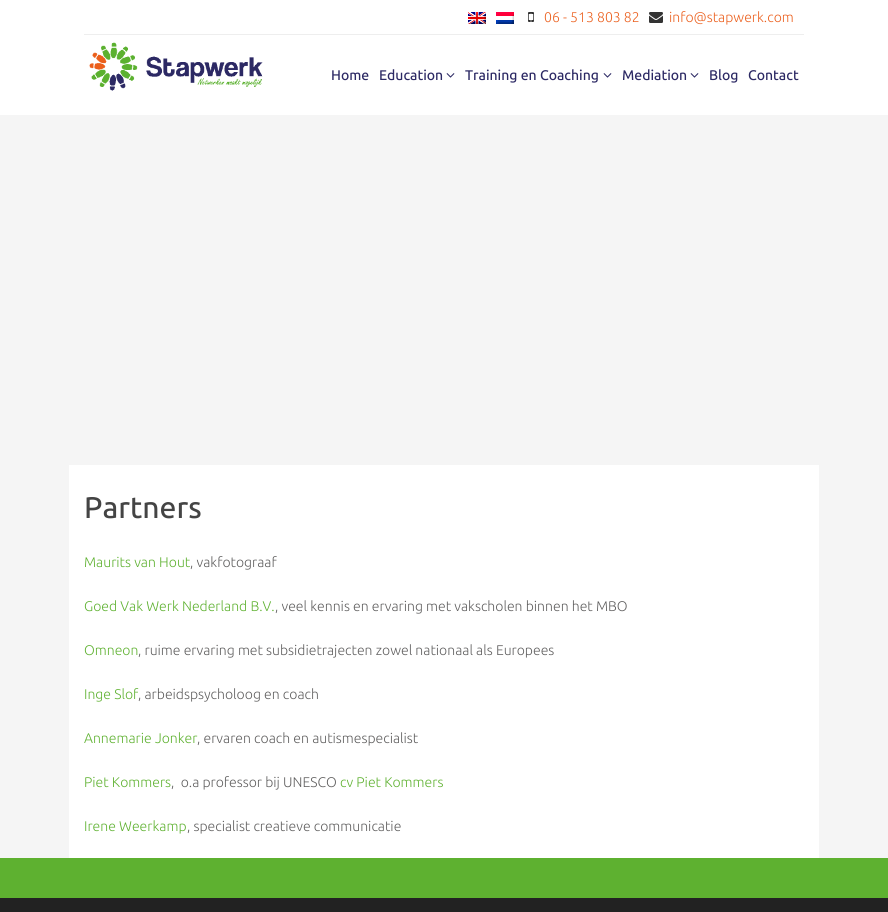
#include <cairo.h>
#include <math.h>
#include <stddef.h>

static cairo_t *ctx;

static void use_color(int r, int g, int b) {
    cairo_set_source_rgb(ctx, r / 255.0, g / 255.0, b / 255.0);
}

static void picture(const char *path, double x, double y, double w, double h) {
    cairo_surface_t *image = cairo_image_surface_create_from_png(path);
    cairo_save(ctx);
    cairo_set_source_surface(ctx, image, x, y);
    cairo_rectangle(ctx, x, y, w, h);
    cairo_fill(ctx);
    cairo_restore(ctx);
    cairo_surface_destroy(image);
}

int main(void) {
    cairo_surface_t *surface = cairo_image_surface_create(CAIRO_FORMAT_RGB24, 888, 912);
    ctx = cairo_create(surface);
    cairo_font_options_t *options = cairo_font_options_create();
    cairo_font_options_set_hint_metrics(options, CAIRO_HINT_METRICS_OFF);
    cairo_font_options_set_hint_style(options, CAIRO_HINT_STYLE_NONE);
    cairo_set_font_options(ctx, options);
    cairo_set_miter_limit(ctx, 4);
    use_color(255, 255, 255);
    cairo_paint(ctx);
    use_color(238, 238, 238);
    cairo_rectangle(ctx, 84, 34, 720, 1);
    cairo_fill(ctx);
    picture("img1.png", 468, 12, 18, 12);
    picture("img2.png", 496, 12, 18, 12);
    picture("img3.png", 528, 12, 6, 10);
    cairo_select_font_face(ctx, "Ubuntu Light", CAIRO_FONT_SLANT_NORMAL, CAIRO_FONT_WEIGHT_NORMAL);
    cairo_set_font_size(ctx, 14);
    use_color(235, 95, 29);
    cairo_move_to(ctx, 544, 22);
    cairo_show_text(ctx, "06 - 513 803 82");
    picture("img4.png", 649, 12, 14, 11);
    cairo_move_to(ctx, 669, 22);
    cairo_show_text(ctx, "info@stapwerk.com");
    picture("img5.png", 89, 42, 174, 49);
    cairo_select_font_face(ctx, "Ubuntu Medium", CAIRO_FONT_SLANT_NORMAL, CAIRO_FONT_WEIGHT_NORMAL);
    use_color(44, 41, 100);
    cairo_move_to(ctx, 331, 80);
    cairo_show_text(ctx, "Home");
    cairo_move_to(ctx, 379, 80);
    cairo_show_text(ctx, "Education");
    picture("img6.png", 446, 73, 9, 5);
    cairo_move_to(ctx, 465, 80);
    cairo_show_text(ctx, "Training en Coaching");
    picture("img6.png", 603, 73, 9, 5);
    cairo_move_to(ctx, 622, 80);
    cairo_show_text(ctx, "Mediation");
    picture("img6.png", 690, 73, 9, 5);
    cairo_move_to(ctx, 709, 80);
    cairo_show_text(ctx, "Blog");
    cairo_move_to(ctx, 748, 80);
    cairo_show_text(ctx, "Contact");
    use_color(245, 245, 245);
    cairo_rectangle(ctx, 0, 115, 888, 743);
    cairo_fill(ctx);
    use_color(255, 255, 255);
    cairo_rectangle(ctx, 69, 465, 750, 393);
    cairo_fill(ctx);
    cairo_set_font_size(ctx, 30);
    use_color(68, 68, 68);
    cairo_move_to(ctx, 84, 518);
    cairo_show_text(ctx, "Partners");
    cairo_select_font_face(ctx, "Ubuntu Light", CAIRO_FONT_SLANT_NORMAL, CAIRO_FONT_WEIGHT_NORMAL);
    cairo_set_font_size(ctx, 14);
    use_color(94, 177, 48);
    cairo_move_to(ctx, 84, 567);
    cairo_show_text(ctx, "Maurits van Hout");
    use_color(95, 94, 94);
    cairo_move_to(ctx, 190, 567);
    cairo_show_text(ctx, ", vakfotograaf");
    use_color(94, 177, 48);
    cairo_move_to(ctx, 84, 611);
    cairo_show_text(ctx, "Goed Vak Werk Nederland B.V.");
    use_color(95, 94, 94);
    cairo_move_to(ctx, 275, 611);
    cairo_show_text(ctx, ", veel kennis en ervaring met vakscholen binnen het MBO");
    use_color(94, 177, 48);
    cairo_move_to(ctx, 84, 655);
    cairo_show_text(ctx, "Omneon");
    use_color(95, 94, 94);
    cairo_move_to(ctx, 138, 655);
    cairo_show_text(ctx, ", ruime ervaring met subsidietrajecten zowel nationaal als Europees");
    use_color(94, 177, 48);
    cairo_move_to(ctx, 84, 699);
    cairo_show_text(ctx, "Inge Slof");
    use_color(95, 94, 94);
    cairo_move_to(ctx, 138, 699);
    cairo_show_text(ctx, ", arbeidspsycholoog en coach");
    use_color(94, 177, 48);
    cairo_move_to(ctx, 84, 743);
    cairo_show_text(ctx, "Annemarie Jonker");
    use_color(95, 94, 94);
    cairo_move_to(ctx, 197, 743);
    cairo_show_text(ctx, ", ervaren coach en autismespecialist");
    use_color(94, 177, 48);
    cairo_move_to(ctx, 84, 787);
    cairo_show_text(ctx, "Piet Kommers");
    use_color(95, 94, 94);
    cairo_move_to(ctx, 171, 787);
    cairo_show_text(ctx, ",  o.a professor bij UNESCO");
    use_color(94, 177, 48);
    cairo_move_to(ctx, 340, 787);
    cairo_show_text(ctx, "cv Piet Kommers");
    cairo_move_to(ctx, 84, 831);
    cairo_show_text(ctx, "Irene Weerkamp");
    use_color(95, 94, 94);
    cairo_move_to(ctx, 187, 831);
    cairo_show_text(ctx, ", specialist creatieve communicatie");
    use_color(94, 177, 48);
    cairo_rectangle(ctx, 0, 858, 888, 40);
    cairo_fill(ctx);
    use_color(34, 34, 34);
    cairo_rectangle(ctx, 0, 898, 888, 14);
    cairo_fill(ctx);
    cairo_surface_write_to_png(surface, "result.png");
    cairo_font_options_destroy(options);
    cairo_destroy(ctx);
    cairo_surface_destroy(surface);
    return 0;
}
